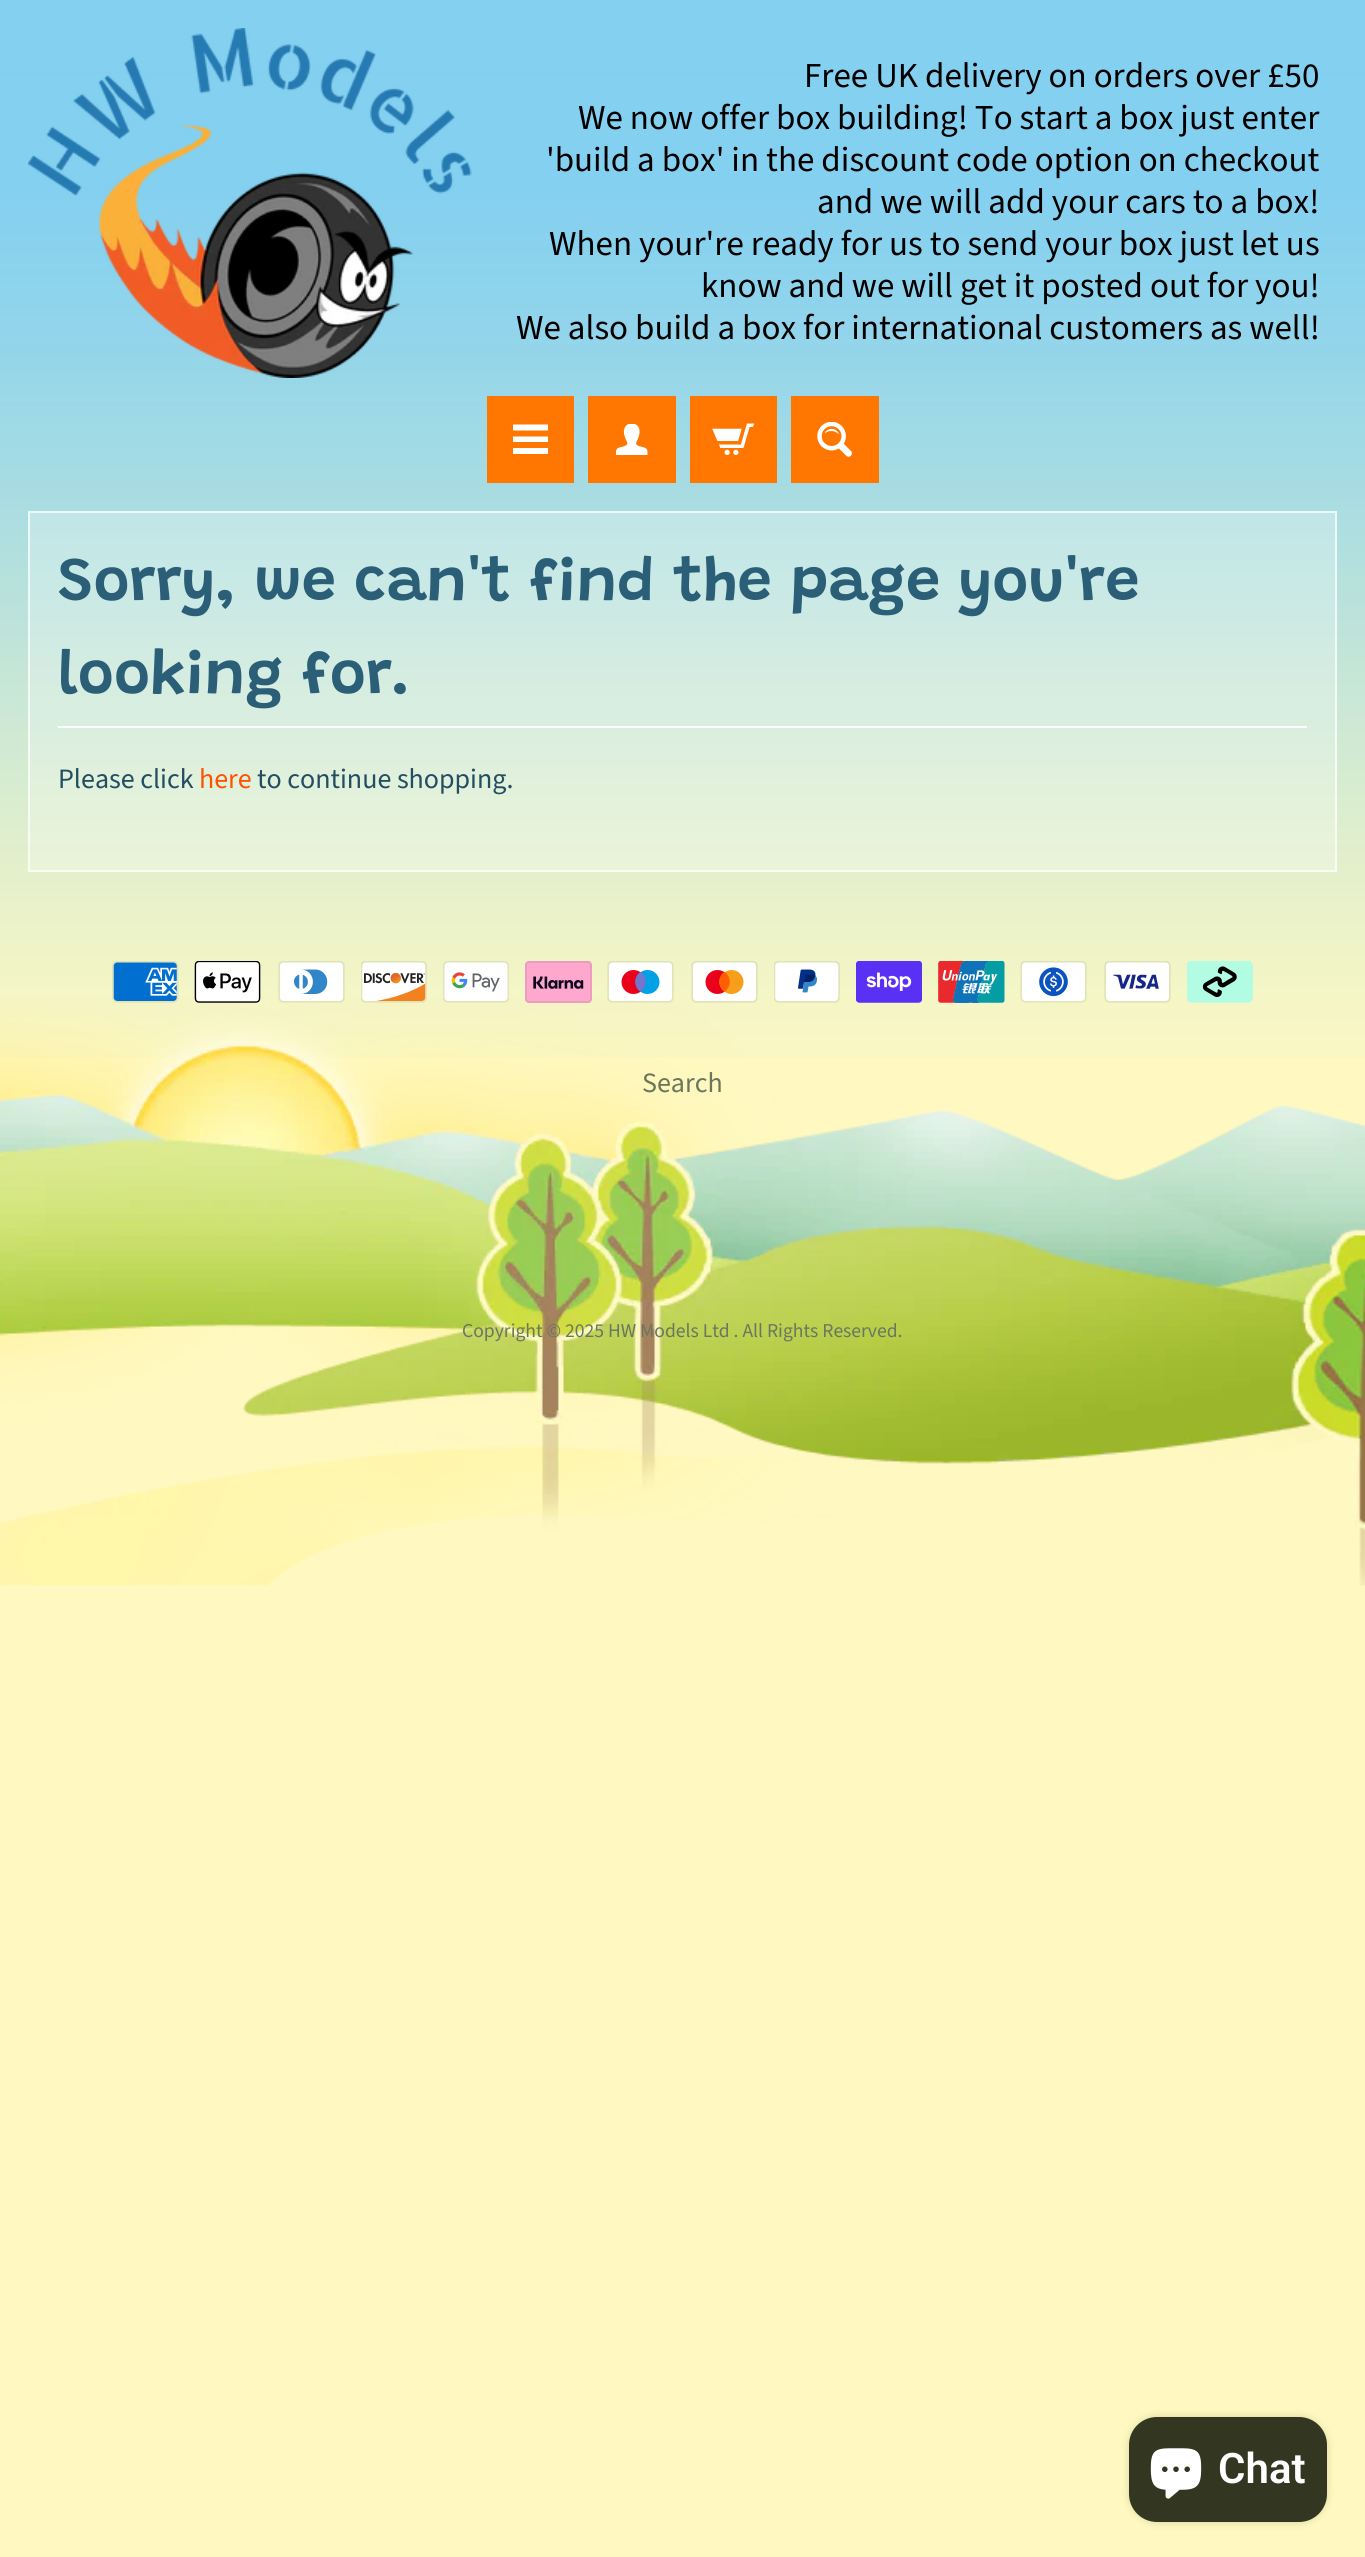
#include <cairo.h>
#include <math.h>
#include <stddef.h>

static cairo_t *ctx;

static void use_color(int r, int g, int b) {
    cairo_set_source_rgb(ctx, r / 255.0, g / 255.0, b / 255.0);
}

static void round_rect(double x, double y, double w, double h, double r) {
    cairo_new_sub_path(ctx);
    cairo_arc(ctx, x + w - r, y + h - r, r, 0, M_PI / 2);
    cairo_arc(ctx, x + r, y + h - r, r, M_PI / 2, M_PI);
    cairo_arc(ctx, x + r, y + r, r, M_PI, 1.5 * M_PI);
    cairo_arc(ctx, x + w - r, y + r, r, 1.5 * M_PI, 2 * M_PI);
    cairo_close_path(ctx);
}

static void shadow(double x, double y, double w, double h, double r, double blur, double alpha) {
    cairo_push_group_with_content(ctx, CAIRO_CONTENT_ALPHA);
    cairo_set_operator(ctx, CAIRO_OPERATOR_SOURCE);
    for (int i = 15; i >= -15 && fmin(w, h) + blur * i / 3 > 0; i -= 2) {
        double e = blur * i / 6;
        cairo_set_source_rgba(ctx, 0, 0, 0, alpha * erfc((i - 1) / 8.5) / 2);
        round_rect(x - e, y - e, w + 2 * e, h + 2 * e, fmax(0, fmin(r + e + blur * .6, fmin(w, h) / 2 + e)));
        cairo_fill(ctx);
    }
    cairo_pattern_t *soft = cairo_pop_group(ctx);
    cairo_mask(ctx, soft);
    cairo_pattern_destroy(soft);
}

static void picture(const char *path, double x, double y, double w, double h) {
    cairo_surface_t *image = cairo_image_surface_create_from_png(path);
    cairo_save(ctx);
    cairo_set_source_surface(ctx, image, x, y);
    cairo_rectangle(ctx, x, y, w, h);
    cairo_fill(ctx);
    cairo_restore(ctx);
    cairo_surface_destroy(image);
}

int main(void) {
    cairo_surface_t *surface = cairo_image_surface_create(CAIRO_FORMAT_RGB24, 1365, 2557);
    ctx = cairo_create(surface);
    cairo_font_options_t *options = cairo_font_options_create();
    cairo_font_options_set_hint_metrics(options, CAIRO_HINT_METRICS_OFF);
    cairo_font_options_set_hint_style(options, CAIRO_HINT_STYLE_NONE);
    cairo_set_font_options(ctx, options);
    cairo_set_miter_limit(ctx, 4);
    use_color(255, 249, 193);
    cairo_paint(ctx);
    picture("img1.png", 0, 0, 1365, 1058);
    picture("img2.png", 28, 28, 444, 350);
    cairo_select_font_face(ctx, "Source Sans Pro", CAIRO_FONT_SLANT_NORMAL, CAIRO_FONT_WEIGHT_NORMAL);
    cairo_set_font_size(ctx, 35);
    use_color(0, 0, 0);
    cairo_move_to(ctx, 804, 87);
    cairo_show_text(ctx, "Free UK delivery on orders over £50");
    cairo_move_to(ctx, 578, 129);
    cairo_show_text(ctx, "We now offer box building! To start a box just enter");
    cairo_move_to(ctx, 546, 171);
    cairo_show_text(ctx, "'build a box' in the discount code option on checkout");
    cairo_move_to(ctx, 817, 213);
    cairo_show_text(ctx, "and we will add your cars to a box!");
    cairo_move_to(ctx, 549, 255);
    cairo_show_text(ctx, "When your're ready for us to send your box just let us");
    cairo_move_to(ctx, 701, 297);
    cairo_show_text(ctx, "know and we will get it posted out for you!");
    cairo_move_to(ctx, 516, 339);
    cairo_show_text(ctx, "We also build a box for international customers as well!");
    use_color(255, 119, 0);
    cairo_rectangle(ctx, 487, 396, 87, 87);
    cairo_fill(ctx);
    use_color(255, 255, 255);
    cairo_new_path(ctx);
    cairo_move_to(ctx, 548, 430.5);
    cairo_line_to(ctx, 513, 430.5);
    cairo_line_to(ctx, 513, 424.5);
    cairo_line_to(ctx, 548, 424.5);
    cairo_close_path(ctx);
    cairo_move_to(ctx, 548, 436.5);
    cairo_line_to(ctx, 513, 436.5);
    cairo_line_to(ctx, 513, 442);
    cairo_line_to(ctx, 548, 442);
    cairo_close_path(ctx);
    cairo_move_to(ctx, 548, 448);
    cairo_line_to(ctx, 513, 448);
    cairo_line_to(ctx, 513, 454);
    cairo_line_to(ctx, 548, 454);
    cairo_close_path(ctx);
    cairo_fill(ctx);
    use_color(255, 119, 0);
    cairo_rectangle(ctx, 588, 396, 88, 87);
    cairo_fill(ctx);
    picture("img3.png", 616, 424, 32, 31);
    cairo_rectangle(ctx, 690, 396, 87, 87);
    cairo_fill(ctx);
    picture("img4.png", 712, 423, 42, 32);
    cairo_rectangle(ctx, 791, 396, 88, 87);
    cairo_fill(ctx);
    picture("img5.png", 817, 422, 35, 35);
    cairo_set_source_rgba(ctx, 1, 1, 1, 0.25);
    cairo_rectangle(ctx, 28, 511, 1309, 361);
    cairo_fill(ctx);
    cairo_rectangle(ctx, 29, 512, 1307, 359);
    cairo_set_source_rgba(ctx, 1, 1, 1, 0.7);
    cairo_stroke(ctx);
    use_color(255, 255, 255);
    cairo_rectangle(ctx, 58, 726, 1249, 2);
    cairo_fill(ctx);
    cairo_select_font_face(ctx, "Grandstander SemiBold", CAIRO_FONT_SLANT_NORMAL, CAIRO_FONT_WEIGHT_NORMAL);
    cairo_set_font_size(ctx, 61.6);
    use_color(43, 95, 119);
    cairo_move_to(ctx, 58, 600);
    cairo_show_text(ctx, "Sorry, we can't find the page you're");
    cairo_move_to(ctx, 58, 693);
    cairo_show_text(ctx, "looking for.");
    cairo_select_font_face(ctx, "Source Sans Pro", CAIRO_FONT_SLANT_NORMAL, CAIRO_FONT_WEIGHT_NORMAL);
    cairo_set_font_size(ctx, 28);
    use_color(35, 77, 97);
    cairo_move_to(ctx, 58, 788);
    cairo_show_text(ctx, "Please click");
    use_color(255, 83, 0);
    cairo_move_to(ctx, 199, 788);
    cairo_show_text(ctx, "here");
    use_color(35, 77, 97);
    cairo_move_to(ctx, 257, 788);
    cairo_show_text(ctx, "to continue shopping.");
    picture("img6.png", 0, 998, 1365, 588);
    picture("img7.png", 112, 961, 67, 42);
    picture("img8.png", 194, 961, 67, 42);
    picture("img9.png", 278, 961, 67, 42);
    picture("img10.png", 361, 961, 66, 42);
    picture("img11.png", 443, 961, 66, 42);
    picture("img12.png", 525, 961, 67, 42);
    picture("img13.png", 607, 961, 67, 42);
    picture("img14.png", 691, 961, 67, 42);
    picture("img15.png", 774, 961, 66, 42);
    picture("img16.png", 856, 961, 66, 42);
    picture("img17.png", 938, 961, 67, 42);
    picture("img18.png", 1020, 961, 67, 42);
    picture("img19.png", 1104, 961, 67, 42);
    picture("img20.png", 1187, 961, 66, 42);
    use_color(107, 118, 95);
    cairo_move_to(ctx, 642, 1092);
    cairo_show_text(ctx, "Search");
    cairo_set_font_size(ctx, 19.6);
    cairo_move_to(ctx, 462, 1337);
    cairo_show_text(ctx, "Copyright © 2025 HW Models Ltd . All Rights Reserved.");
    use_color(0, 0, 0);
    shadow(1129, 2417, 198, 105, 28, 4.5, 0.15);
    use_color(51, 54, 32);
    round_rect(1129, 2417, 198, 105, 28);
    cairo_fill(ctx);
    picture("img21.png", 1150, 2448, 52, 51);
    cairo_select_font_face(ctx, "Roboto SemiBold", CAIRO_FONT_SLANT_NORMAL, CAIRO_FONT_WEIGHT_NORMAL);
    cairo_set_font_size(ctx, 42);
    use_color(255, 255, 255);
    cairo_move_to(ctx, 1218, 2483);
    cairo_show_text(ctx, "Chat");
    cairo_surface_write_to_png(surface, "result.png");
    cairo_font_options_destroy(options);
    cairo_destroy(ctx);
    cairo_surface_destroy(surface);
    return 0;
}
